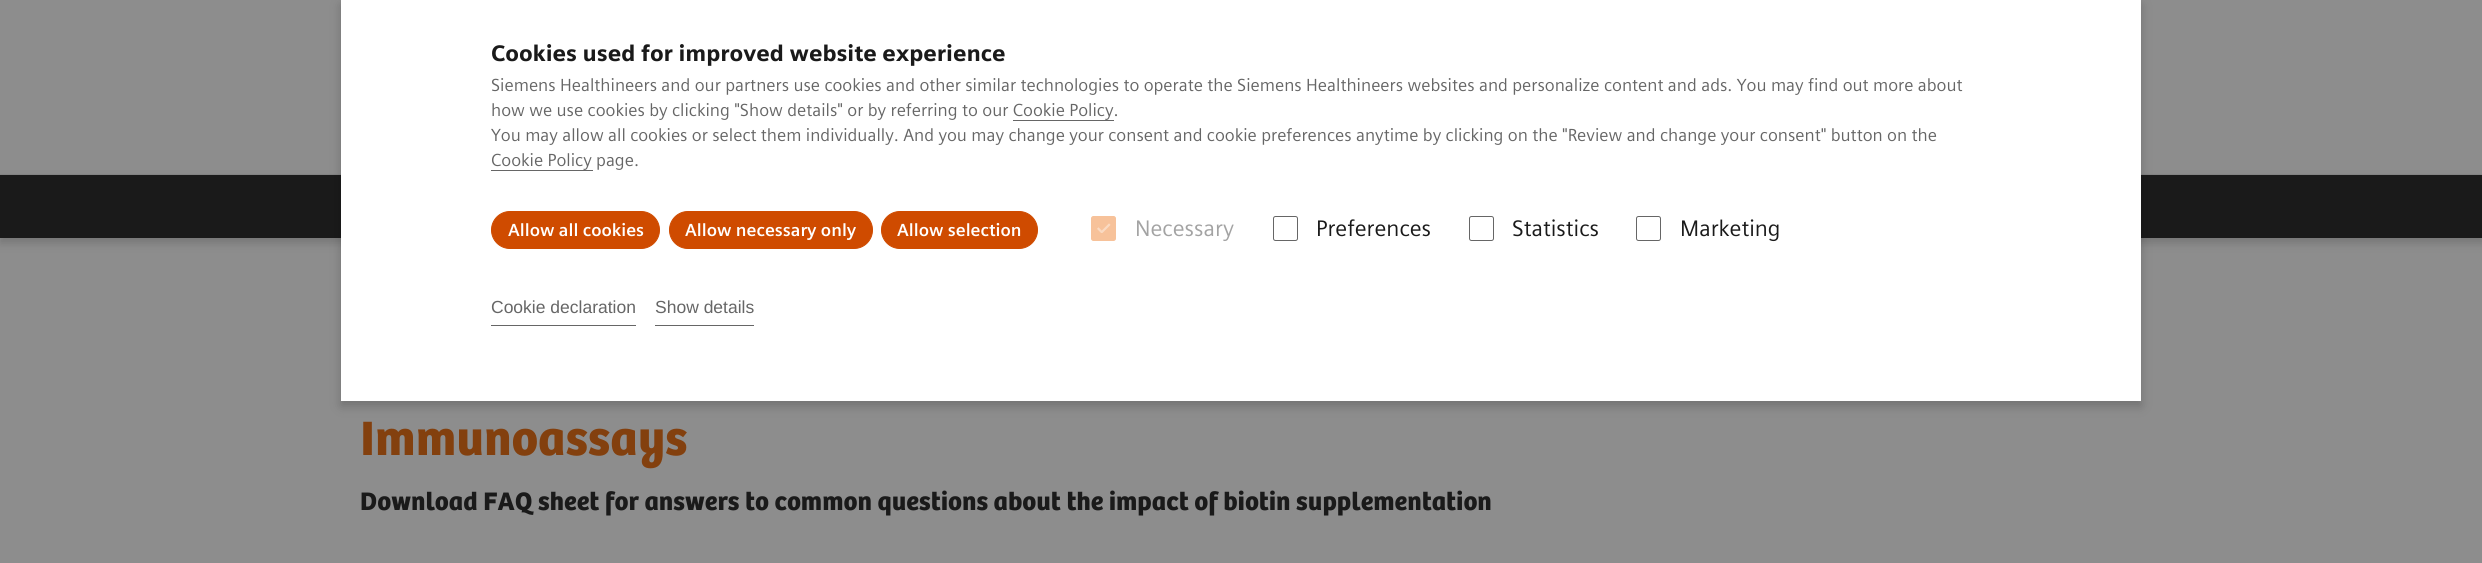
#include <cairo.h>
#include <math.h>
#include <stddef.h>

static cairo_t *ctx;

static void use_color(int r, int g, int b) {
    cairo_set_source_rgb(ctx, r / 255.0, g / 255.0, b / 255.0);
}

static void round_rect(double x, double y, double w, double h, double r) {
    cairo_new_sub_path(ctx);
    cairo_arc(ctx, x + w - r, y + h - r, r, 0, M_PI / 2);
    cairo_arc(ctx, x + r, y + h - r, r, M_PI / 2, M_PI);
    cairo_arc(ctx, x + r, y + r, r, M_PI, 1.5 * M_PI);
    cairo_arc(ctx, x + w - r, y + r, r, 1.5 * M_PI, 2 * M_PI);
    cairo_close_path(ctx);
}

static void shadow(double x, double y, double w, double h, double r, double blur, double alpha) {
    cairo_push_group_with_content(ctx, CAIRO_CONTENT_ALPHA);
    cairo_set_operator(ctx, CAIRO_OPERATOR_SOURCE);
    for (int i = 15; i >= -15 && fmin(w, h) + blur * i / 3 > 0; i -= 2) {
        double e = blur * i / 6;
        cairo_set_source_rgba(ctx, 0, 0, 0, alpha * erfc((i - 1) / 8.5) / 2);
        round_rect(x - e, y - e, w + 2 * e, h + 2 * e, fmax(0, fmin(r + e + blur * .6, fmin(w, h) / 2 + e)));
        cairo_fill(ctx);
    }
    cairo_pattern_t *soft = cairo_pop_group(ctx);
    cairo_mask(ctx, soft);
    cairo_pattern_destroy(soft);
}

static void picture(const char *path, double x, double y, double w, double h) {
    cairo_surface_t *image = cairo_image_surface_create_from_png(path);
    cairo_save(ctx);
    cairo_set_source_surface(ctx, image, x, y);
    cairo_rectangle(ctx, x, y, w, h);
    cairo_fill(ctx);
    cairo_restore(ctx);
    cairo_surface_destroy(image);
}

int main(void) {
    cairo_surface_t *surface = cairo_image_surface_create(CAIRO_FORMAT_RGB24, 2482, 563);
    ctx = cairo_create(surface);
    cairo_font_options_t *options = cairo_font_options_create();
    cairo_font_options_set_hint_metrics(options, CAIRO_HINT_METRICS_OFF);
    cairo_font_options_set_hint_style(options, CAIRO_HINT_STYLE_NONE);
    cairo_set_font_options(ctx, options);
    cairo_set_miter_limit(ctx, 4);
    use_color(141, 141, 141);
    cairo_paint(ctx);
    use_color(132, 132, 132);
    cairo_rectangle(ctx, 0, 174, 2482, 1);
    cairo_fill(ctx);
    use_color(27, 27, 27);
    shadow(0, 180, 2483, 63, 0, 4.5, 0.2);
    use_color(26, 26, 26);
    cairo_rectangle(ctx, 0, 175, 2482, 63);
    cairo_fill(ctx);
    use_color(0, 0, 0);
    shadow(341, 5, 1800, 401, 0, 5.5, 0.2);
    use_color(255, 255, 255);
    cairo_rectangle(ctx, 341, 0, 1800, 401);
    cairo_fill(ctx);
    cairo_select_font_face(ctx, "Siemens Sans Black", CAIRO_FONT_SLANT_NORMAL, CAIRO_FONT_WEIGHT_NORMAL);
    cairo_set_font_size(ctx, 22.5);
    use_color(26, 26, 26);
    cairo_move_to(ctx, 491, 61);
    cairo_show_text(ctx, "Cookies used for improved website experience");
    cairo_select_font_face(ctx, "Siemens Sans", CAIRO_FONT_SLANT_NORMAL, CAIRO_FONT_WEIGHT_NORMAL);
    cairo_set_font_size(ctx, 17.5);
    use_color(102, 102, 102);
    cairo_move_to(ctx, 491, 91);
    cairo_show_text(ctx, "Siemens Healthineers and our partners use cookies and other similar technologies to operate the Siemens Healthineers websites and personalize content and ads. You may find out more about");
    cairo_move_to(ctx, 491, 116);
    cairo_show_text(ctx, "how we use cookies by clicking \"Show details\" or by referring to our Cookie Policy.");
    cairo_rectangle(ctx, 1013, 120, 101, 1);
    cairo_fill(ctx);
    cairo_move_to(ctx, 491, 141);
    cairo_show_text(ctx, "You may allow all cookies or select them individually. And you may change your consent and cookie preferences anytime by clicking on the \"Review and change your consent\" button on the");
    cairo_move_to(ctx, 491, 166);
    cairo_show_text(ctx, "Cookie Policy page.");
    cairo_rectangle(ctx, 491, 170, 102, 1);
    cairo_fill(ctx);
    use_color(207, 75, 0);
    round_rect(491.5, 211.5, 168, 37, 18.5);
    cairo_fill_preserve(ctx);
    cairo_set_line_width(ctx, 1);
    cairo_stroke(ctx);
    cairo_select_font_face(ctx, "Siemens Sans", CAIRO_FONT_SLANT_NORMAL, CAIRO_FONT_WEIGHT_BOLD);
    use_color(255, 255, 255);
    cairo_move_to(ctx, 508, 236);
    cairo_show_text(ctx, "Allow all cookies");
    use_color(207, 75, 0);
    round_rect(669.5, 211.5, 203, 37, 18.5);
    cairo_fill_preserve(ctx);
    cairo_stroke(ctx);
    use_color(255, 255, 255);
    cairo_move_to(ctx, 685, 236);
    cairo_show_text(ctx, "Allow necessary only");
    use_color(207, 75, 0);
    round_rect(881.5, 211.5, 156, 37, 18.5);
    cairo_fill_preserve(ctx);
    cairo_stroke(ctx);
    use_color(255, 255, 255);
    cairo_move_to(ctx, 897, 236);
    cairo_show_text(ctx, "Allow selection");
    use_color(247, 194, 154);
    round_rect(1091.5, 216.5, 24, 24, 2);
    cairo_fill_preserve(ctx);
    cairo_stroke(ctx);
    picture("img1.png", 1097, 223, 14, 10);
    cairo_select_font_face(ctx, "Siemens Sans", CAIRO_FONT_SLANT_NORMAL, CAIRO_FONT_WEIGHT_NORMAL);
    cairo_set_font_size(ctx, 22.5);
    use_color(163, 163, 163);
    cairo_move_to(ctx, 1135, 236);
    cairo_show_text(ctx, "Necessary");
    round_rect(1273.5, 216.5, 24, 24, 2);
    use_color(102, 102, 102);
    cairo_stroke(ctx);
    use_color(26, 26, 26);
    cairo_move_to(ctx, 1316, 236);
    cairo_show_text(ctx, "Preferences");
    round_rect(1469.5, 216.5, 24, 24, 2);
    use_color(102, 102, 102);
    cairo_stroke(ctx);
    use_color(26, 26, 26);
    cairo_move_to(ctx, 1512, 236);
    cairo_show_text(ctx, "Statistics");
    round_rect(1636.5, 216.5, 24, 24, 2);
    use_color(102, 102, 102);
    cairo_stroke(ctx);
    use_color(26, 26, 26);
    cairo_move_to(ctx, 1680, 236);
    cairo_show_text(ctx, "Marketing");
    use_color(102, 102, 102);
    cairo_rectangle(ctx, 491, 325, 145, 1);
    cairo_fill(ctx);
    cairo_select_font_face(ctx, "Liberation Sans", CAIRO_FONT_SLANT_NORMAL, CAIRO_FONT_WEIGHT_NORMAL);
    cairo_set_font_size(ctx, 17.5);
    cairo_move_to(ctx, 491, 313);
    cairo_show_text(ctx, "Cookie declaration");
    cairo_rectangle(ctx, 655, 325, 99, 1);
    cairo_fill(ctx);
    cairo_move_to(ctx, 655, 313);
    cairo_show_text(ctx, "Show details");
    cairo_select_font_face(ctx, "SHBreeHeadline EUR", CAIRO_FONT_SLANT_NORMAL, CAIRO_FONT_WEIGHT_BOLD);
    cairo_set_font_size(ctx, 50);
    use_color(131, 64, 14);
    cairo_move_to(ctx, 360, 455);
    cairo_show_text(ctx, "Immunoassays");
    cairo_set_font_size(ctx, 26.25);
    use_color(26, 26, 26);
    cairo_move_to(ctx, 360, 510);
    cairo_show_text(ctx, "Download FAQ sheet for answers to common questions about the impact of biotin supplementation");
    cairo_surface_write_to_png(surface, "result.png");
    cairo_font_options_destroy(options);
    cairo_destroy(ctx);
    cairo_surface_destroy(surface);
    return 0;
}
